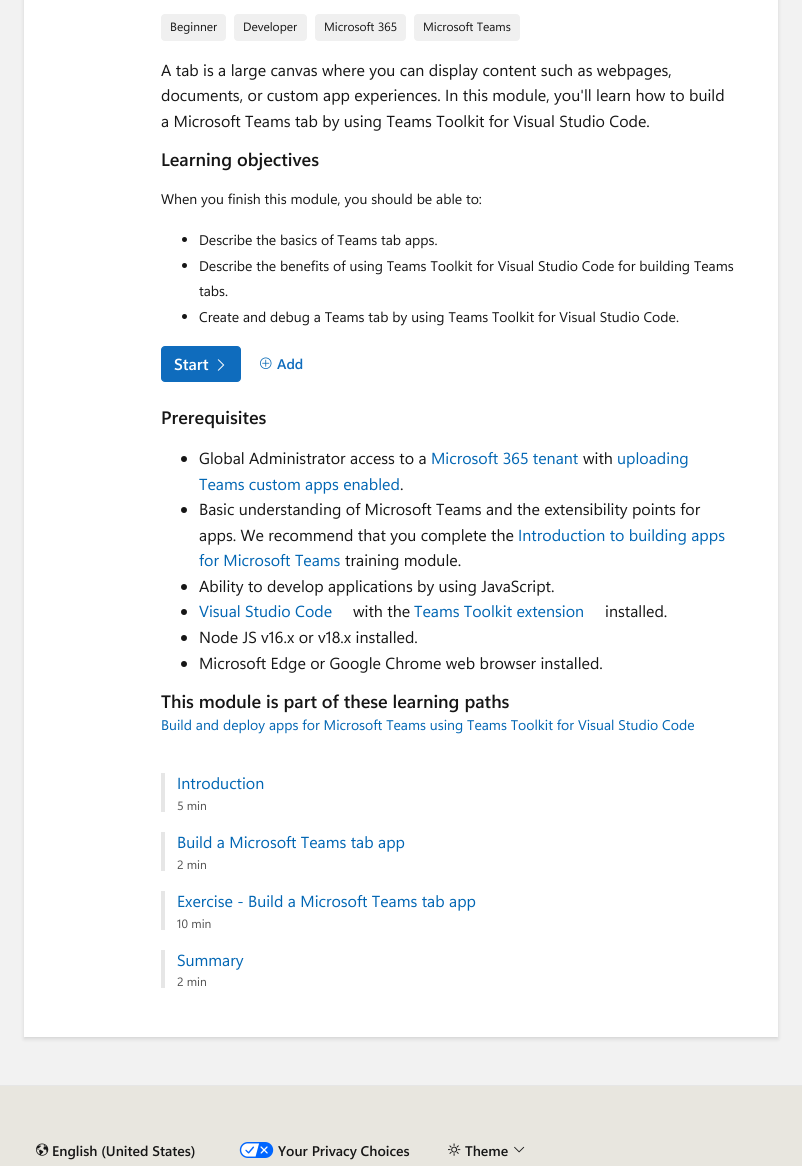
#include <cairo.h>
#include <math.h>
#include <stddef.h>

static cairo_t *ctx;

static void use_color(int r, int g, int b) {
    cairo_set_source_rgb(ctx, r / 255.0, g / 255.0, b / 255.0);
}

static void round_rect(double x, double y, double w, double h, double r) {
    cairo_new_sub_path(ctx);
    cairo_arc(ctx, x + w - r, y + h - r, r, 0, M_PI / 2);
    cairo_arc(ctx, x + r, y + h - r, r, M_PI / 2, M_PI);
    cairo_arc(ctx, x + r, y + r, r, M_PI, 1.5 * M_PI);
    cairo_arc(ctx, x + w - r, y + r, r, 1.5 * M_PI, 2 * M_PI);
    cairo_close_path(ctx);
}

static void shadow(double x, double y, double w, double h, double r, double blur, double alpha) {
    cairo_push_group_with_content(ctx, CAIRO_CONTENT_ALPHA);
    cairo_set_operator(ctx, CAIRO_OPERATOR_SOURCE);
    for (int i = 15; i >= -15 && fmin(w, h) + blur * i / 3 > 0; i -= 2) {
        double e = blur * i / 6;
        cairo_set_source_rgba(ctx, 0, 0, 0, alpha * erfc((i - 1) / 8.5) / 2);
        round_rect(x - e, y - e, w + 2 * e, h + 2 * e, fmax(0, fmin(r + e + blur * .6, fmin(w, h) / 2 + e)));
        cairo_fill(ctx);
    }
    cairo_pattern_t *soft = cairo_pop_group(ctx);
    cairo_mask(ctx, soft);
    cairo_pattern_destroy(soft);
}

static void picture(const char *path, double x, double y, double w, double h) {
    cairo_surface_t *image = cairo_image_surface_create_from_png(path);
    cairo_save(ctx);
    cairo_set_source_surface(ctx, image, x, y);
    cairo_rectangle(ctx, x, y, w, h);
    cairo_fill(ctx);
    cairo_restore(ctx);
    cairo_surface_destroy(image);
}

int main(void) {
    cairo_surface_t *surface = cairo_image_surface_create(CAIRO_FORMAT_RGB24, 802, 1166);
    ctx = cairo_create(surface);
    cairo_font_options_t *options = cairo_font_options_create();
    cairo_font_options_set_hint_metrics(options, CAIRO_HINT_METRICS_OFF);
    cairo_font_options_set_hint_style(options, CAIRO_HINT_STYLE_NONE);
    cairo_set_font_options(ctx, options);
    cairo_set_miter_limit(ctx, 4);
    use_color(232, 230, 223);
    cairo_paint(ctx);
    use_color(242, 242, 242);
    cairo_rectangle(ctx, 0, 0, 802, 1085);
    cairo_fill(ctx);
    use_color(0, 0, 0);
    shadow(24, -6, 754, 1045, 0, 2, 0.13);
    use_color(255, 255, 255);
    cairo_rectangle(ctx, 24, 0, 754, 1037);
    cairo_fill(ctx);
    use_color(240, 240, 240);
    round_rect(161.5, 14.5, 64, 26, 3.5);
    cairo_fill_preserve(ctx);
    cairo_set_line_width(ctx, 1);
    cairo_stroke(ctx);
    cairo_select_font_face(ctx, "Segoe UI", CAIRO_FONT_SLANT_NORMAL, CAIRO_FONT_WEIGHT_NORMAL);
    cairo_set_font_size(ctx, 12);
    use_color(22, 22, 22);
    cairo_move_to(ctx, 170, 31);
    cairo_show_text(ctx, "Beginner");
    use_color(240, 240, 240);
    round_rect(234.5, 14.5, 72, 26, 3.5);
    cairo_fill_preserve(ctx);
    cairo_stroke(ctx);
    use_color(22, 22, 22);
    cairo_move_to(ctx, 243, 31);
    cairo_show_text(ctx, "Developer");
    use_color(240, 240, 240);
    round_rect(315.5, 14.5, 90, 26, 3.5);
    cairo_fill_preserve(ctx);
    cairo_stroke(ctx);
    use_color(22, 22, 22);
    cairo_move_to(ctx, 324, 31);
    cairo_show_text(ctx, "Microsoft 365");
    use_color(240, 240, 240);
    round_rect(414.5, 14.5, 105, 26, 3.5);
    cairo_fill_preserve(ctx);
    cairo_stroke(ctx);
    use_color(22, 22, 22);
    cairo_move_to(ctx, 423, 31);
    cairo_show_text(ctx, "Microsoft Teams");
    cairo_set_font_size(ctx, 16);
    cairo_move_to(ctx, 161, 76);
    cairo_show_text(ctx, "A tab is a large canvas where you can display content such as webpages,");
    cairo_move_to(ctx, 161, 101);
    cairo_show_text(ctx, "documents, or custom app experiences. In this module, you'll learn how to build");
    cairo_move_to(ctx, 161, 127);
    cairo_show_text(ctx, "a Microsoft Teams tab by using Teams Toolkit for Visual Studio Code.");
    cairo_select_font_face(ctx, "Segoe UI SemiBold", CAIRO_FONT_SLANT_NORMAL, CAIRO_FONT_WEIGHT_NORMAL);
    cairo_set_font_size(ctx, 18);
    cairo_move_to(ctx, 161, 166);
    cairo_show_text(ctx, "Learning objectives");
    cairo_select_font_face(ctx, "Segoe UI", CAIRO_FONT_SLANT_NORMAL, CAIRO_FONT_WEIGHT_NORMAL);
    cairo_set_font_size(ctx, 14);
    cairo_move_to(ctx, 161, 204);
    cairo_show_text(ctx, "When you finish this module, you should be able to:");
    cairo_new_path(ctx);
    cairo_arc(ctx, 184.5, 239.5, 2.5, 0, 2 * M_PI);
    cairo_fill(ctx);
    cairo_move_to(ctx, 199, 245);
    cairo_show_text(ctx, "Describe the basics of Teams tab apps.");
    cairo_new_path(ctx);
    cairo_arc(ctx, 184.5, 265.5, 2.5, 0, 2 * M_PI);
    cairo_fill(ctx);
    cairo_move_to(ctx, 199, 271);
    cairo_show_text(ctx, "Describe the benefits of using Teams Toolkit for Visual Studio Code for building Teams");
    cairo_move_to(ctx, 199, 296);
    cairo_show_text(ctx, "tabs.");
    cairo_new_path(ctx);
    cairo_arc(ctx, 184.5, 316.5, 2.5, 0, 2 * M_PI);
    cairo_fill(ctx);
    cairo_move_to(ctx, 199, 322);
    cairo_show_text(ctx, "Create and debug a Teams tab by using Teams Toolkit for Visual Studio Code.");
    use_color(15, 108, 189);
    round_rect(161.5, 346.5, 79, 35, 3.5);
    cairo_fill_preserve(ctx);
    cairo_stroke(ctx);
    cairo_select_font_face(ctx, "Segoe UI SemiBold", CAIRO_FONT_SLANT_NORMAL, CAIRO_FONT_WEIGHT_NORMAL);
    cairo_set_font_size(ctx, 16);
    use_color(255, 255, 255);
    cairo_move_to(ctx, 174, 370);
    cairo_show_text(ctx, "Start");
    picture("img1.png", 217, 359, 8, 12);
    picture("img2.png", 260, 357, 12, 12);
    cairo_set_font_size(ctx, 14);
    use_color(15, 108, 189);
    cairo_move_to(ctx, 277, 369);
    cairo_show_text(ctx, "Add");
    cairo_set_font_size(ctx, 18);
    use_color(22, 22, 22);
    cairo_move_to(ctx, 161, 424);
    cairo_show_text(ctx, "Prerequisites");
    cairo_new_path(ctx);
    cairo_arc(ctx, 184, 459, 3, 0, 2 * M_PI);
    cairo_fill(ctx);
    cairo_select_font_face(ctx, "Segoe UI", CAIRO_FONT_SLANT_NORMAL, CAIRO_FONT_WEIGHT_NORMAL);
    cairo_set_font_size(ctx, 16);
    cairo_move_to(ctx, 199, 464);
    cairo_show_text(ctx, "Global Administrator access to a");
    use_color(0, 101, 179);
    cairo_move_to(ctx, 431, 464);
    cairo_show_text(ctx, "Microsoft 365 tenant");
    use_color(22, 22, 22);
    cairo_move_to(ctx, 583, 464);
    cairo_show_text(ctx, "with");
    use_color(0, 101, 179);
    cairo_move_to(ctx, 617, 464);
    cairo_show_text(ctx, "uploading");
    cairo_move_to(ctx, 199, 490);
    cairo_show_text(ctx, "Teams custom apps enabled");
    use_color(22, 22, 22);
    cairo_move_to(ctx, 400, 490);
    cairo_show_text(ctx, ".");
    cairo_new_path(ctx);
    cairo_arc(ctx, 184, 510, 3, 0, 2 * M_PI);
    cairo_fill(ctx);
    cairo_move_to(ctx, 199, 515);
    cairo_show_text(ctx, "Basic understanding of Microsoft Teams and the extensibility points for");
    cairo_move_to(ctx, 199, 541);
    cairo_show_text(ctx, "apps. We recommend that you complete the");
    use_color(0, 101, 179);
    cairo_move_to(ctx, 518, 541);
    cairo_show_text(ctx, "Introduction to building apps");
    cairo_move_to(ctx, 199, 566);
    cairo_show_text(ctx, "for Microsoft Teams");
    use_color(22, 22, 22);
    cairo_move_to(ctx, 345, 566);
    cairo_show_text(ctx, "training module.");
    cairo_new_path(ctx);
    cairo_arc(ctx, 184, 587, 3, 0, 2 * M_PI);
    cairo_fill(ctx);
    cairo_move_to(ctx, 199, 592);
    cairo_show_text(ctx, "Ability to develop applications by using JavaScript.");
    cairo_new_path(ctx);
    cairo_arc(ctx, 184, 612, 3, 0, 2 * M_PI);
    cairo_fill(ctx);
    use_color(0, 101, 179);
    cairo_move_to(ctx, 199, 617);
    cairo_show_text(ctx, "Visual Studio Code");
    use_color(22, 22, 22);
    cairo_move_to(ctx, 353, 617);
    cairo_show_text(ctx, "with the");
    use_color(0, 101, 179);
    cairo_move_to(ctx, 414, 617);
    cairo_show_text(ctx, "Teams Toolkit extension");
    use_color(22, 22, 22);
    cairo_move_to(ctx, 605, 617);
    cairo_show_text(ctx, "installed.");
    cairo_new_path(ctx);
    cairo_arc(ctx, 184, 638, 3, 0, 2 * M_PI);
    cairo_fill(ctx);
    cairo_move_to(ctx, 199, 643);
    cairo_show_text(ctx, "Node JS v16.x or v18.x installed.");
    cairo_new_path(ctx);
    cairo_arc(ctx, 184, 664, 3, 0, 2 * M_PI);
    cairo_fill(ctx);
    cairo_move_to(ctx, 199, 669);
    cairo_show_text(ctx, "Microsoft Edge or Google Chrome web browser installed.");
    cairo_select_font_face(ctx, "Segoe UI SemiBold", CAIRO_FONT_SLANT_NORMAL, CAIRO_FONT_WEIGHT_NORMAL);
    cairo_set_font_size(ctx, 18);
    cairo_move_to(ctx, 161, 708);
    cairo_show_text(ctx, "This module is part of these learning paths");
    cairo_select_font_face(ctx, "Segoe UI", CAIRO_FONT_SLANT_NORMAL, CAIRO_FONT_WEIGHT_NORMAL);
    cairo_set_font_size(ctx, 14);
    use_color(0, 101, 179);
    cairo_move_to(ctx, 161, 730);
    cairo_show_text(ctx, "Build and deploy apps for Microsoft Teams using Teams Toolkit for Visual Studio Code");
    use_color(230, 230, 230);
    cairo_rectangle(ctx, 161, 773, 4, 39);
    cairo_fill(ctx);
    cairo_set_font_size(ctx, 16);
    use_color(0, 101, 179);
    cairo_move_to(ctx, 177, 789);
    cairo_show_text(ctx, "Introduction");
    cairo_set_font_size(ctx, 12);
    use_color(80, 80, 80);
    cairo_move_to(ctx, 177, 810);
    cairo_show_text(ctx, "5 min");
    use_color(230, 230, 230);
    cairo_rectangle(ctx, 161, 832, 4, 39);
    cairo_fill(ctx);
    cairo_set_font_size(ctx, 16);
    use_color(0, 101, 179);
    cairo_move_to(ctx, 177, 848);
    cairo_show_text(ctx, "Build a Microsoft Teams tab app");
    cairo_set_font_size(ctx, 12);
    use_color(80, 80, 80);
    cairo_move_to(ctx, 177, 869);
    cairo_show_text(ctx, "2 min");
    use_color(230, 230, 230);
    cairo_rectangle(ctx, 161, 891, 4, 39);
    cairo_fill(ctx);
    cairo_set_font_size(ctx, 16);
    use_color(0, 101, 179);
    cairo_move_to(ctx, 177, 907);
    cairo_show_text(ctx, "Exercise - Build a Microsoft Teams tab app");
    cairo_set_font_size(ctx, 12);
    use_color(80, 80, 80);
    cairo_move_to(ctx, 177, 928);
    cairo_show_text(ctx, "10 min");
    use_color(230, 230, 230);
    cairo_rectangle(ctx, 161, 950, 4, 38);
    cairo_fill(ctx);
    cairo_set_font_size(ctx, 16);
    use_color(0, 101, 179);
    cairo_move_to(ctx, 177, 966);
    cairo_show_text(ctx, "Summary");
    cairo_set_font_size(ctx, 12);
    use_color(80, 80, 80);
    cairo_move_to(ctx, 177, 986);
    cairo_show_text(ctx, "2 min");
    use_color(230, 230, 230);
    cairo_rectangle(ctx, 0, 1085, 802, 1);
    cairo_fill(ctx);
    picture("img3.png", 36, 1143, 13, 13);
    cairo_select_font_face(ctx, "Segoe UI SemiBold", CAIRO_FONT_SLANT_NORMAL, CAIRO_FONT_WEIGHT_NORMAL);
    cairo_set_font_size(ctx, 14);
    use_color(22, 22, 22);
    cairo_move_to(ctx, 52, 1156);
    cairo_show_text(ctx, "English (United States)");
    picture("img4.png", 239, 1142, 35, 16);
    cairo_move_to(ctx, 278, 1156);
    cairo_show_text(ctx, "Your Privacy Choices");
    picture("img5.png", 448, 1143, 13, 13);
    cairo_move_to(ctx, 465, 1156);
    cairo_show_text(ctx, "Theme");
    picture("img6.png", 514, 1146, 11, 7);
    cairo_surface_write_to_png(surface, "result.png");
    cairo_font_options_destroy(options);
    cairo_destroy(ctx);
    cairo_surface_destroy(surface);
    return 0;
}
